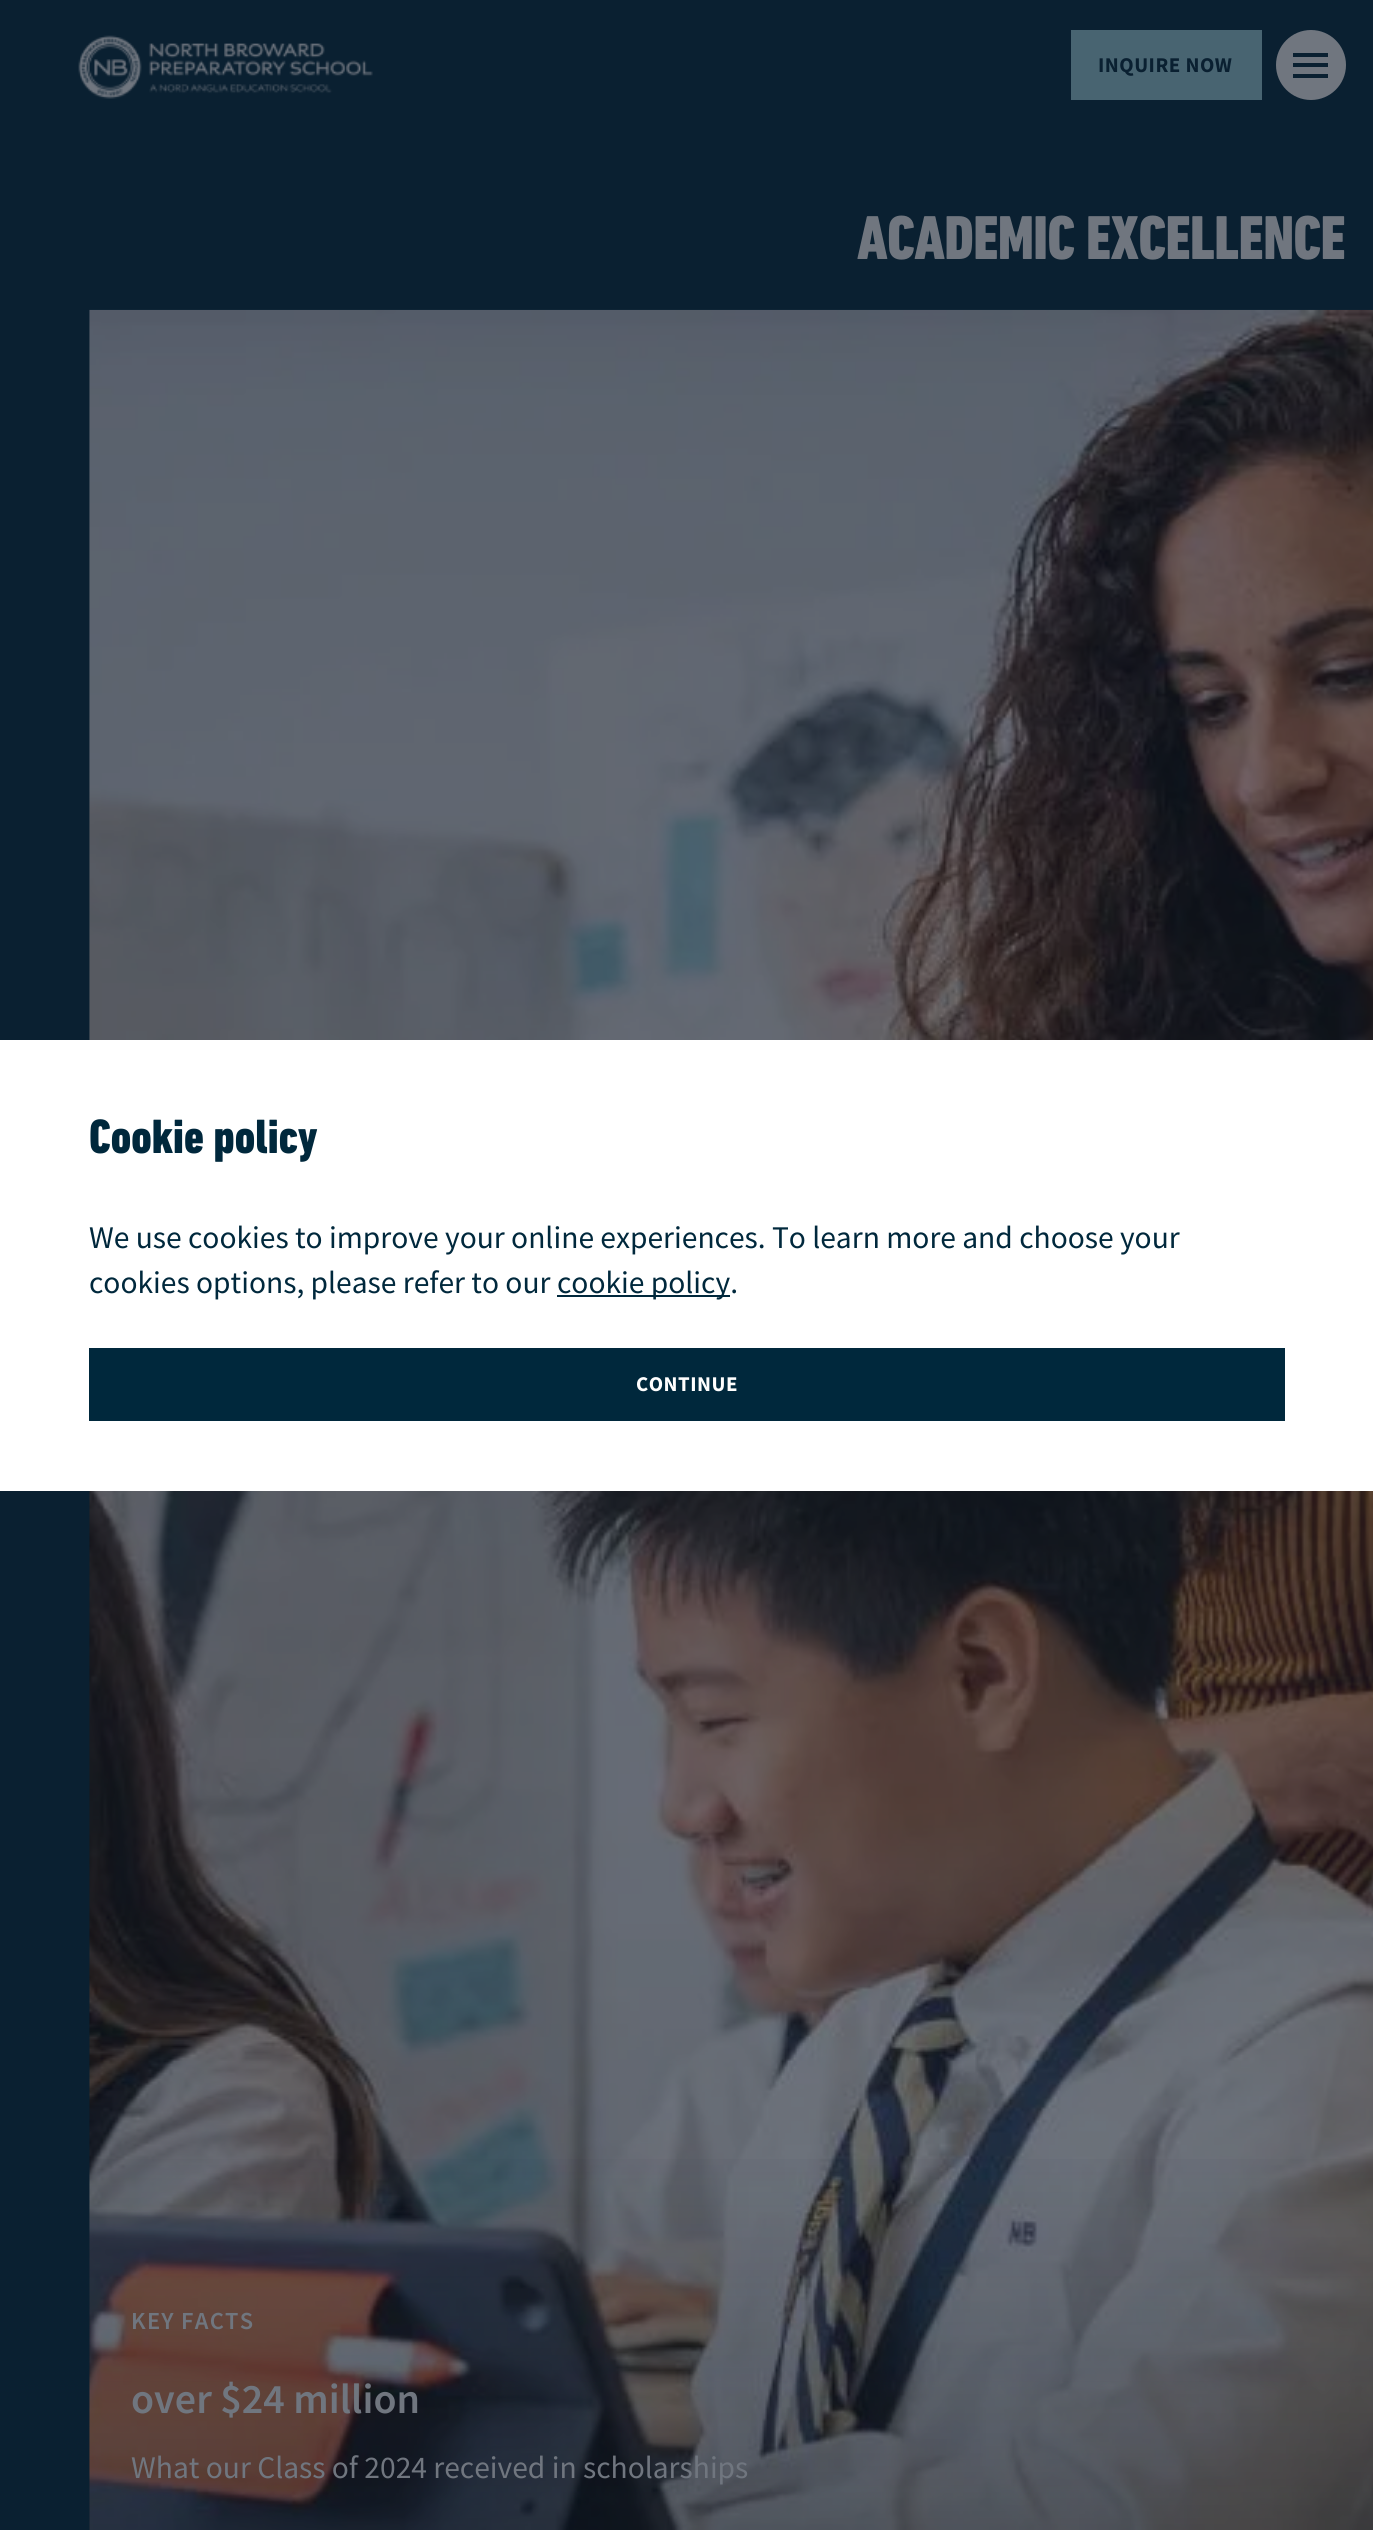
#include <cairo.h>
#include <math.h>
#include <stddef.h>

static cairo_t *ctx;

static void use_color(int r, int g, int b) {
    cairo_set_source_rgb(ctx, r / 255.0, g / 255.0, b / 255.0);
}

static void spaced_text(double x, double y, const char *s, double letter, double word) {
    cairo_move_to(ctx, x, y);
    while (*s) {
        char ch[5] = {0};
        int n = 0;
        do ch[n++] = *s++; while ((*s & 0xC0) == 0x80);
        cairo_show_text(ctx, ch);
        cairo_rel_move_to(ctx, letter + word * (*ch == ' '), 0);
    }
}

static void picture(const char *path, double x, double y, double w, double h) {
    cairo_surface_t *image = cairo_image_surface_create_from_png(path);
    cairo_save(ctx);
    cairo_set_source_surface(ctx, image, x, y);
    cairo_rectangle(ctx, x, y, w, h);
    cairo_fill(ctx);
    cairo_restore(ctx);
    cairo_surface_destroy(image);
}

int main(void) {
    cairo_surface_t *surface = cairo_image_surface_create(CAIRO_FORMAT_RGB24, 1373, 2530);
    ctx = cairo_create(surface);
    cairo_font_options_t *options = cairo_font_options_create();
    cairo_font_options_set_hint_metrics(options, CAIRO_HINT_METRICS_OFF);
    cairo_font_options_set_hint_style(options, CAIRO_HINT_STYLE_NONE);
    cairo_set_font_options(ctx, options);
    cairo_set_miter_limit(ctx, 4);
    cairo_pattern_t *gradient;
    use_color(10, 32, 49);
    cairo_paint(ctx);
    picture("img1.png", 78, 35, 295, 64);
    use_color(72, 100, 113);
    cairo_rectangle(ctx, 1071, 30, 191, 70);
    cairo_fill(ctx);
    cairo_select_font_face(ctx, "Source Sans Pro", CAIRO_FONT_SLANT_NORMAL, CAIRO_FONT_WEIGHT_BOLD);
    cairo_set_font_size(ctx, 21);
    use_color(10, 32, 49);
    spaced_text(1098, 72, "INQUIRE NOW", 0.5, 0);
    use_color(112, 118, 127);
    cairo_new_path(ctx);
    cairo_arc(ctx, 1311, 65, 35, 0, 2 * M_PI);
    cairo_fill(ctx);
    use_color(10, 32, 49);
    cairo_rectangle(ctx, 1293, 53, 35, 4);
    cairo_fill(ctx);
    cairo_rectangle(ctx, 1293, 63, 35, 4);
    cairo_fill(ctx);
    cairo_rectangle(ctx, 1293, 74, 35, 4);
    cairo_fill(ctx);
    cairo_select_font_face(ctx, "DIN Next Black", CAIRO_FONT_SLANT_NORMAL, CAIRO_FONT_WEIGHT_NORMAL);
    cairo_set_font_size(ctx, 63);
    use_color(112, 118, 127);
    spaced_text(857, 259, "ACADEMIC EXCELLENCE", -0.75, 0);
    picture("img2.png", 89, 309, 1284, 2221);
    gradient = cairo_pattern_create_linear(732, 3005, 732, 2123);
    cairo_pattern_add_color_stop_rgba(gradient, 0, 0.039, 0.063, 0.098, 0.53);
    cairo_pattern_add_color_stop_rgba(gradient, 1, 0.039, 0.063, 0.098, 0);
    cairo_set_source(ctx, gradient);
    cairo_pattern_destroy(gradient);
    cairo_rectangle(ctx, 89, 2159, 1284, 371);
    cairo_fill(ctx);
    cairo_select_font_face(ctx, "Source Sans Pro SemiBold", CAIRO_FONT_SLANT_NORMAL, CAIRO_FONT_WEIGHT_NORMAL);
    cairo_set_font_size(ctx, 24.5);
    use_color(112, 118, 127);
    spaced_text(131, 2329, "KEY FACTS", 1.25, 0);
    cairo_set_font_size(ctx, 42);
    cairo_move_to(ctx, 131, 2413);
    cairo_show_text(ctx, "over $24 million");
    cairo_select_font_face(ctx, "Source Sans Pro", CAIRO_FONT_SLANT_NORMAL, CAIRO_FONT_WEIGHT_NORMAL);
    cairo_set_font_size(ctx, 31.5);
    cairo_move_to(ctx, 131, 2478);
    cairo_show_text(ctx, "What our Class of 2024 received in scholarships");
    use_color(255, 255, 255);
    cairo_rectangle(ctx, 0, 1040, 1373, 451);
    cairo_fill(ctx);
    cairo_select_font_face(ctx, "DIN Next Black", CAIRO_FONT_SLANT_NORMAL, CAIRO_FONT_WEIGHT_NORMAL);
    cairo_set_font_size(ctx, 49);
    use_color(0, 40, 60);
    cairo_move_to(ctx, 89, 1153);
    cairo_show_text(ctx, "Cookie policy");
    cairo_select_font_face(ctx, "Source Sans Pro", CAIRO_FONT_SLANT_NORMAL, CAIRO_FONT_WEIGHT_NORMAL);
    cairo_set_font_size(ctx, 31.5);
    cairo_move_to(ctx, 89, 1248);
    cairo_show_text(ctx, "We use cookies to improve your online experiences. To learn more and choose your");
    cairo_move_to(ctx, 89, 1293);
    cairo_show_text(ctx, "cookies options, please refer to our");
    cairo_rectangle(ctx, 557, 1295, 173, 2);
    cairo_fill(ctx);
    cairo_move_to(ctx, 557, 1293);
    cairo_show_text(ctx, "cookie policy.");
    cairo_rectangle(ctx, 89, 1348, 1196, 73);
    cairo_fill(ctx);
    cairo_select_font_face(ctx, "Source Sans Pro", CAIRO_FONT_SLANT_NORMAL, CAIRO_FONT_WEIGHT_BOLD);
    cairo_set_font_size(ctx, 21);
    use_color(255, 255, 255);
    spaced_text(636, 1391, "CONTINUE", 0.5, 0);
    cairo_surface_write_to_png(surface, "result.png");
    cairo_font_options_destroy(options);
    cairo_destroy(ctx);
    cairo_surface_destroy(surface);
    return 0;
}
